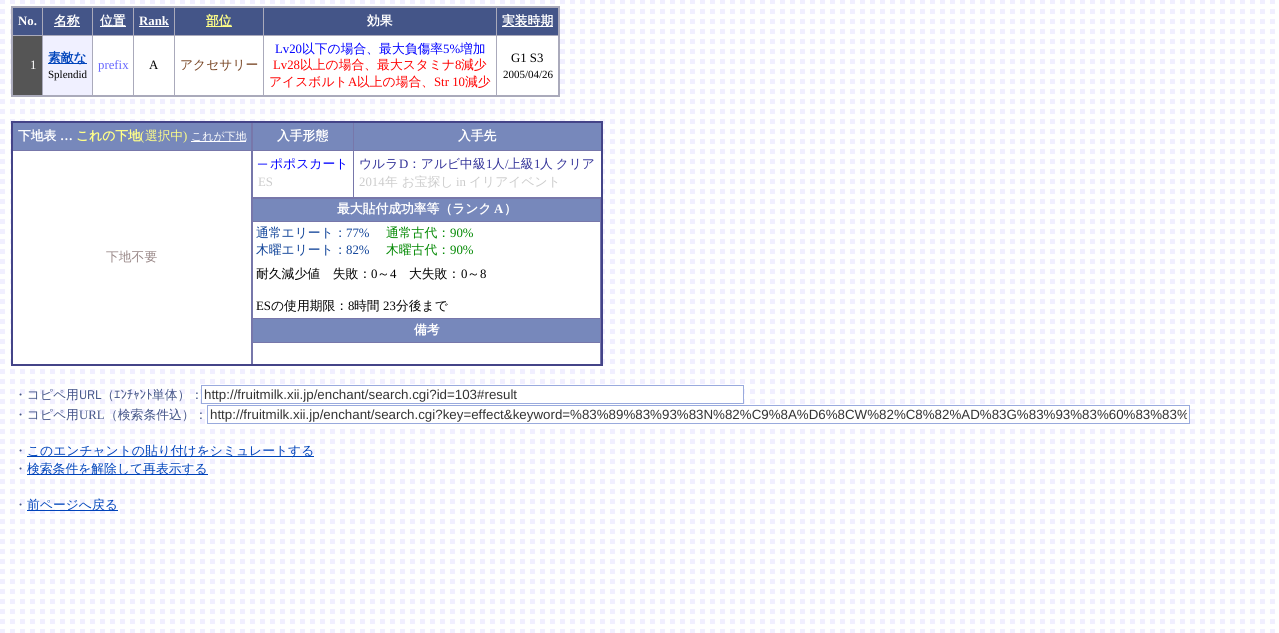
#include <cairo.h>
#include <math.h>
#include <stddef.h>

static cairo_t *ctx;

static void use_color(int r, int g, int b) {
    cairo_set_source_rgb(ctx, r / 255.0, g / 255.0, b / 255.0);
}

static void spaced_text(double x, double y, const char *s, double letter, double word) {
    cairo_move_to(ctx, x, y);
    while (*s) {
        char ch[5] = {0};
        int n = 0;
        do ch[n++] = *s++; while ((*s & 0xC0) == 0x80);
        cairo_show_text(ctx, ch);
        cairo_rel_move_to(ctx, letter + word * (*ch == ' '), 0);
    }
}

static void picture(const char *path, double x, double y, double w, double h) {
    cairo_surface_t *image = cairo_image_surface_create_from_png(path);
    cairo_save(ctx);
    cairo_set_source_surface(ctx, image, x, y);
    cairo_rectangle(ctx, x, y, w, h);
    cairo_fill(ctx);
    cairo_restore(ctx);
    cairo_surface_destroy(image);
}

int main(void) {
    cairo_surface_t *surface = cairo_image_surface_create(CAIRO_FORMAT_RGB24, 1279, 633);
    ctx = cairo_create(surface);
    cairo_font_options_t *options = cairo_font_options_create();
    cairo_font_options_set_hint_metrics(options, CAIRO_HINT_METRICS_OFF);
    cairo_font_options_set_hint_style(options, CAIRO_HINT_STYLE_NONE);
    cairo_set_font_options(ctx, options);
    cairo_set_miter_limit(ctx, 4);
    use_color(255, 255, 255);
    cairo_paint(ctx);
    picture("img1.png", 0, 0, 1275, 633);
    use_color(255, 255, 255);
    cairo_rectangle(ctx, 93, 39, 462, 55);
    cairo_fill(ctx);
    use_color(170, 170, 187);
    cairo_rectangle(ctx, 496, 35, 63, 1);
    cairo_fill(ctx);
    cairo_rectangle(ctx, 496, 35, 1, 62);
    cairo_fill(ctx);
    cairo_rectangle(ctx, 263, 35, 234, 1);
    cairo_fill(ctx);
    cairo_rectangle(ctx, 263, 35, 1, 62);
    cairo_fill(ctx);
    cairo_rectangle(ctx, 174, 35, 90, 1);
    cairo_fill(ctx);
    cairo_rectangle(ctx, 174, 35, 1, 62);
    cairo_fill(ctx);
    cairo_rectangle(ctx, 133, 35, 42, 1);
    cairo_fill(ctx);
    cairo_rectangle(ctx, 133, 35, 1, 62);
    cairo_fill(ctx);
    cairo_rectangle(ctx, 92, 35, 42, 1);
    cairo_fill(ctx);
    cairo_rectangle(ctx, 92, 35, 1, 62);
    cairo_fill(ctx);
    cairo_rectangle(ctx, 42, 35, 51, 1);
    cairo_fill(ctx);
    cairo_rectangle(ctx, 42, 35, 1, 62);
    cairo_fill(ctx);
    cairo_rectangle(ctx, 12, 35, 31, 1);
    cairo_fill(ctx);
    cairo_rectangle(ctx, 42, 6, 1, 30);
    cairo_fill(ctx);
    cairo_rectangle(ctx, 92, 6, 1, 30);
    cairo_fill(ctx);
    cairo_rectangle(ctx, 133, 6, 1, 30);
    cairo_fill(ctx);
    cairo_rectangle(ctx, 174, 6, 1, 30);
    cairo_fill(ctx);
    cairo_rectangle(ctx, 263, 6, 1, 30);
    cairo_fill(ctx);
    cairo_rectangle(ctx, 496, 6, 1, 30);
    cairo_fill(ctx);
    cairo_rectangle(ctx, 11, 6, 549, 2);
    cairo_fill(ctx);
    cairo_rectangle(ctx, 558, 6, 2, 91);
    cairo_fill(ctx);
    cairo_rectangle(ctx, 11, 95, 549, 2);
    cairo_fill(ctx);
    cairo_rectangle(ctx, 11, 6, 2, 91);
    cairo_fill(ctx);
    use_color(68, 85, 136);
    cairo_rectangle(ctx, 13, 8, 29, 27);
    cairo_fill(ctx);
    cairo_select_font_face(ctx, "Liberation Serif", CAIRO_FONT_SLANT_NORMAL, CAIRO_FONT_WEIGHT_BOLD);
    cairo_set_font_size(ctx, 12.8);
    use_color(255, 255, 255);
    cairo_move_to(ctx, 18, 25);
    cairo_show_text(ctx, "No.");
    use_color(68, 85, 136);
    cairo_rectangle(ctx, 43, 8, 49, 27);
    cairo_fill(ctx);
    use_color(255, 255, 255);
    cairo_rectangle(ctx, 54, 26, 26, 1);
    cairo_fill(ctx);
    cairo_select_font_face(ctx, "WenQuanYi Zen Hei", CAIRO_FONT_SLANT_NORMAL, CAIRO_FONT_WEIGHT_BOLD);
    cairo_move_to(ctx, 54, 25);
    cairo_show_text(ctx, "名称");
    use_color(68, 85, 136);
    cairo_rectangle(ctx, 93, 8, 40, 27);
    cairo_fill(ctx);
    use_color(255, 255, 255);
    cairo_rectangle(ctx, 100, 26, 26, 1);
    cairo_fill(ctx);
    cairo_move_to(ctx, 100, 25);
    cairo_show_text(ctx, "位置");
    use_color(68, 85, 136);
    cairo_rectangle(ctx, 134, 8, 40, 27);
    cairo_fill(ctx);
    cairo_select_font_face(ctx, "Liberation Serif", CAIRO_FONT_SLANT_NORMAL, CAIRO_FONT_WEIGHT_BOLD);
    use_color(255, 255, 255);
    cairo_move_to(ctx, 139, 25);
    cairo_show_text(ctx, "Rank");
    cairo_rectangle(ctx, 139, 26, 30, 1);
    cairo_fill(ctx);
    use_color(68, 85, 136);
    cairo_rectangle(ctx, 175, 8, 88, 27);
    cairo_fill(ctx);
    use_color(255, 255, 136);
    cairo_rectangle(ctx, 206, 26, 26, 1);
    cairo_fill(ctx);
    cairo_select_font_face(ctx, "WenQuanYi Zen Hei", CAIRO_FONT_SLANT_NORMAL, CAIRO_FONT_WEIGHT_BOLD);
    cairo_move_to(ctx, 206, 25);
    cairo_show_text(ctx, "部位");
    use_color(68, 85, 136);
    cairo_rectangle(ctx, 264, 8, 232, 27);
    cairo_fill(ctx);
    use_color(255, 255, 255);
    cairo_move_to(ctx, 367, 25);
    cairo_show_text(ctx, "効果");
    use_color(68, 85, 136);
    cairo_rectangle(ctx, 497, 8, 61, 27);
    cairo_fill(ctx);
    use_color(255, 255, 255);
    cairo_rectangle(ctx, 502, 26, 51, 1);
    cairo_fill(ctx);
    cairo_move_to(ctx, 502, 25);
    cairo_show_text(ctx, "実装時期");
    use_color(85, 85, 85);
    cairo_rectangle(ctx, 13, 36, 29, 59);
    cairo_fill(ctx);
    cairo_select_font_face(ctx, "Liberation Serif", CAIRO_FONT_SLANT_NORMAL, CAIRO_FONT_WEIGHT_NORMAL);
    use_color(255, 255, 255);
    cairo_move_to(ctx, 30, 69);
    cairo_show_text(ctx, "1");
    use_color(240, 240, 255);
    cairo_rectangle(ctx, 43, 36, 49, 59);
    cairo_fill(ctx);
    use_color(0, 68, 187);
    cairo_rectangle(ctx, 48, 63, 39, 1);
    cairo_fill(ctx);
    cairo_select_font_face(ctx, "WenQuanYi Zen Hei", CAIRO_FONT_SLANT_NORMAL, CAIRO_FONT_WEIGHT_BOLD);
    cairo_move_to(ctx, 48, 62);
    cairo_show_text(ctx, "素敵な");
    cairo_select_font_face(ctx, "Liberation Serif", CAIRO_FONT_SLANT_NORMAL, CAIRO_FONT_WEIGHT_NORMAL);
    cairo_set_font_size(ctx, 11);
    use_color(0, 0, 0);
    cairo_move_to(ctx, 48, 78);
    cairo_show_text(ctx, "Splendid");
    cairo_set_font_size(ctx, 12.8);
    use_color(102, 102, 255);
    cairo_move_to(ctx, 98, 69);
    cairo_show_text(ctx, "prefix");
    use_color(0, 0, 0);
    cairo_move_to(ctx, 149, 69);
    cairo_show_text(ctx, "A");
    cairo_select_font_face(ctx, "WenQuanYi Zen Hei Medium", CAIRO_FONT_SLANT_NORMAL, CAIRO_FONT_WEIGHT_NORMAL);
    use_color(119, 68, 34);
    cairo_move_to(ctx, 180, 69);
    cairo_show_text(ctx, "アクセサリー");
    cairo_select_font_face(ctx, "Liberation Serif", CAIRO_FONT_SLANT_NORMAL, CAIRO_FONT_WEIGHT_NORMAL);
    use_color(0, 0, 255);
    cairo_move_to(ctx, 275, 53);
    cairo_show_text(ctx, "Lv20");
    cairo_select_font_face(ctx, "WenQuanYi Zen Hei Medium", CAIRO_FONT_SLANT_NORMAL, CAIRO_FONT_WEIGHT_NORMAL);
    cairo_move_to(ctx, 302, 53);
    cairo_show_text(ctx, "以下の場合、最大負傷率");
    cairo_select_font_face(ctx, "Liberation Serif", CAIRO_FONT_SLANT_NORMAL, CAIRO_FONT_WEIGHT_NORMAL);
    cairo_move_to(ctx, 443, 53);
    cairo_show_text(ctx, "5%");
    cairo_select_font_face(ctx, "WenQuanYi Zen Hei Medium", CAIRO_FONT_SLANT_NORMAL, CAIRO_FONT_WEIGHT_NORMAL);
    cairo_move_to(ctx, 460, 53);
    cairo_show_text(ctx, "増加");
    cairo_select_font_face(ctx, "Liberation Serif", CAIRO_FONT_SLANT_NORMAL, CAIRO_FONT_WEIGHT_NORMAL);
    use_color(255, 0, 0);
    cairo_move_to(ctx, 273, 69);
    cairo_show_text(ctx, "Lv28");
    cairo_select_font_face(ctx, "WenQuanYi Zen Hei Medium", CAIRO_FONT_SLANT_NORMAL, CAIRO_FONT_WEIGHT_NORMAL);
    cairo_move_to(ctx, 300, 69);
    cairo_show_text(ctx, "以上の場合、最大スタミナ");
    cairo_select_font_face(ctx, "Liberation Serif", CAIRO_FONT_SLANT_NORMAL, CAIRO_FONT_WEIGHT_NORMAL);
    cairo_move_to(ctx, 455, 69);
    cairo_show_text(ctx, "8");
    cairo_select_font_face(ctx, "WenQuanYi Zen Hei Medium", CAIRO_FONT_SLANT_NORMAL, CAIRO_FONT_WEIGHT_NORMAL);
    cairo_move_to(ctx, 461, 69);
    cairo_show_text(ctx, "減少");
    cairo_move_to(ctx, 269, 86);
    cairo_show_text(ctx, "アイスボルト");
    cairo_select_font_face(ctx, "Liberation Serif", CAIRO_FONT_SLANT_NORMAL, CAIRO_FONT_WEIGHT_NORMAL);
    cairo_move_to(ctx, 348, 86);
    cairo_show_text(ctx, "A");
    cairo_select_font_face(ctx, "WenQuanYi Zen Hei Medium", CAIRO_FONT_SLANT_NORMAL, CAIRO_FONT_WEIGHT_NORMAL);
    cairo_move_to(ctx, 357, 86);
    cairo_show_text(ctx, "以上の場合、");
    cairo_select_font_face(ctx, "Liberation Serif", CAIRO_FONT_SLANT_NORMAL, CAIRO_FONT_WEIGHT_NORMAL);
    cairo_move_to(ctx, 434, 86);
    cairo_show_text(ctx, "Str 10");
    cairo_select_font_face(ctx, "WenQuanYi Zen Hei Medium", CAIRO_FONT_SLANT_NORMAL, CAIRO_FONT_WEIGHT_NORMAL);
    cairo_move_to(ctx, 465, 86);
    cairo_show_text(ctx, "減少");
    cairo_select_font_face(ctx, "Liberation Serif", CAIRO_FONT_SLANT_NORMAL, CAIRO_FONT_WEIGHT_NORMAL);
    use_color(0, 0, 0);
    cairo_move_to(ctx, 511, 62);
    cairo_show_text(ctx, "G1 S3");
    cairo_set_font_size(ctx, 11);
    cairo_move_to(ctx, 503, 78);
    cairo_show_text(ctx, "2005/04/26");
    use_color(119, 119, 170);
    cairo_rectangle(ctx, 251, 122, 1, 28);
    cairo_fill(ctx);
    cairo_rectangle(ctx, 353, 150, 249, 1);
    cairo_fill(ctx);
    cairo_rectangle(ctx, 252, 197, 350, 1);
    cairo_fill(ctx);
    cairo_rectangle(ctx, 353, 150, 1, 48);
    cairo_fill(ctx);
    cairo_rectangle(ctx, 12, 150, 342, 1);
    cairo_fill(ctx);
    cairo_rectangle(ctx, 353, 122, 1, 29);
    cairo_fill(ctx);
    cairo_rectangle(ctx, 252, 122, 1, 76);
    cairo_fill(ctx);
    use_color(68, 68, 136);
    cairo_rectangle(ctx, 11, 121, 592, 2);
    cairo_fill(ctx);
    cairo_rectangle(ctx, 601, 121, 2, 245);
    cairo_fill(ctx);
    use_color(119, 119, 170);
    cairo_rectangle(ctx, 251, 150, 1, 216);
    cairo_fill(ctx);
    use_color(255, 255, 255);
    cairo_rectangle(ctx, 253, 222, 342, 142);
    cairo_fill(ctx);
    use_color(119, 119, 170);
    cairo_rectangle(ctx, 252, 342, 349, 1);
    cairo_fill(ctx);
    cairo_rectangle(ctx, 600, 342, 1, 23);
    cairo_fill(ctx);
    cairo_rectangle(ctx, 252, 342, 1, 23);
    cairo_fill(ctx);
    use_color(68, 68, 136);
    cairo_rectangle(ctx, 11, 364, 592, 2);
    cairo_fill(ctx);
    cairo_rectangle(ctx, 11, 121, 2, 245);
    cairo_fill(ctx);
    use_color(119, 136, 187);
    cairo_rectangle(ctx, 13, 123, 238, 27);
    cairo_fill(ctx);
    cairo_select_font_face(ctx, "WenQuanYi Zen Hei", CAIRO_FONT_SLANT_NORMAL, CAIRO_FONT_WEIGHT_BOLD);
    cairo_set_font_size(ctx, 12.8);
    use_color(255, 255, 255);
    cairo_move_to(ctx, 18, 140);
    cairo_show_text(ctx, "下地表");
    cairo_select_font_face(ctx, "Liberation Serif", CAIRO_FONT_SLANT_NORMAL, CAIRO_FONT_WEIGHT_BOLD);
    cairo_move_to(ctx, 60, 140);
    cairo_show_text(ctx, "…");
    cairo_select_font_face(ctx, "WenQuanYi Zen Hei", CAIRO_FONT_SLANT_NORMAL, CAIRO_FONT_WEIGHT_BOLD);
    use_color(255, 255, 136);
    cairo_move_to(ctx, 76, 140);
    cairo_show_text(ctx, "これの下地");
    cairo_select_font_face(ctx, "Liberation Serif", CAIRO_FONT_SLANT_NORMAL, CAIRO_FONT_WEIGHT_NORMAL);
    cairo_move_to(ctx, 140, 140);
    cairo_show_text(ctx, "(");
    cairo_select_font_face(ctx, "WenQuanYi Zen Hei Medium", CAIRO_FONT_SLANT_NORMAL, CAIRO_FONT_WEIGHT_NORMAL);
    cairo_move_to(ctx, 145, 140);
    cairo_show_text(ctx, "選択中");
    cairo_select_font_face(ctx, "Liberation Serif", CAIRO_FONT_SLANT_NORMAL, CAIRO_FONT_WEIGHT_NORMAL);
    cairo_move_to(ctx, 183, 140);
    cairo_show_text(ctx, ")");
    use_color(255, 255, 255);
    cairo_rectangle(ctx, 191, 141, 55, 1);
    cairo_fill(ctx);
    cairo_select_font_face(ctx, "WenQuanYi Zen Hei Medium", CAIRO_FONT_SLANT_NORMAL, CAIRO_FONT_WEIGHT_NORMAL);
    cairo_set_font_size(ctx, 11);
    cairo_move_to(ctx, 191, 140);
    cairo_show_text(ctx, "これが下地");
    use_color(119, 136, 187);
    cairo_rectangle(ctx, 253, 123, 100, 27);
    cairo_fill(ctx);
    cairo_select_font_face(ctx, "WenQuanYi Zen Hei", CAIRO_FONT_SLANT_NORMAL, CAIRO_FONT_WEIGHT_BOLD);
    cairo_set_font_size(ctx, 12.8);
    use_color(255, 255, 255);
    cairo_move_to(ctx, 277, 140);
    cairo_show_text(ctx, "入手形態");
    use_color(119, 136, 187);
    cairo_rectangle(ctx, 354, 123, 247, 27);
    cairo_fill(ctx);
    use_color(255, 255, 255);
    cairo_move_to(ctx, 458, 140);
    cairo_show_text(ctx, "入手先");
    cairo_rectangle(ctx, 253, 151, 100, 43);
    cairo_fill(ctx);
    cairo_select_font_face(ctx, "Liberation Serif", CAIRO_FONT_SLANT_NORMAL, CAIRO_FONT_WEIGHT_NORMAL);
    use_color(0, 0, 255);
    cairo_move_to(ctx, 258, 168);
    cairo_show_text(ctx, "─");
    cairo_select_font_face(ctx, "WenQuanYi Zen Hei Medium", CAIRO_FONT_SLANT_NORMAL, CAIRO_FONT_WEIGHT_NORMAL);
    cairo_move_to(ctx, 270, 168);
    cairo_show_text(ctx, "ポポスカート");
    cairo_select_font_face(ctx, "Liberation Serif", CAIRO_FONT_SLANT_NORMAL, CAIRO_FONT_WEIGHT_NORMAL);
    use_color(204, 204, 204);
    cairo_move_to(ctx, 258, 186);
    cairo_show_text(ctx, "ES");
    use_color(255, 255, 255);
    cairo_rectangle(ctx, 354, 151, 247, 43);
    cairo_fill(ctx);
    cairo_select_font_face(ctx, "WenQuanYi Zen Hei Medium", CAIRO_FONT_SLANT_NORMAL, CAIRO_FONT_WEIGHT_NORMAL);
    use_color(51, 51, 153);
    cairo_move_to(ctx, 359, 168);
    cairo_show_text(ctx, "ウルラ");
    cairo_select_font_face(ctx, "Liberation Serif", CAIRO_FONT_SLANT_NORMAL, CAIRO_FONT_WEIGHT_NORMAL);
    cairo_move_to(ctx, 399, 168);
    cairo_show_text(ctx, "D");
    cairo_select_font_face(ctx, "WenQuanYi Zen Hei Medium", CAIRO_FONT_SLANT_NORMAL, CAIRO_FONT_WEIGHT_NORMAL);
    cairo_move_to(ctx, 408, 168);
    cairo_show_text(ctx, "：アルビ中級");
    cairo_select_font_face(ctx, "Liberation Serif", CAIRO_FONT_SLANT_NORMAL, CAIRO_FONT_WEIGHT_NORMAL);
    cairo_move_to(ctx, 486, 168);
    cairo_show_text(ctx, "1");
    cairo_select_font_face(ctx, "WenQuanYi Zen Hei Medium", CAIRO_FONT_SLANT_NORMAL, CAIRO_FONT_WEIGHT_NORMAL);
    cairo_move_to(ctx, 492, 168);
    cairo_show_text(ctx, "人");
    cairo_select_font_face(ctx, "Liberation Serif", CAIRO_FONT_SLANT_NORMAL, CAIRO_FONT_WEIGHT_NORMAL);
    cairo_move_to(ctx, 505, 168);
    cairo_show_text(ctx, "/");
    cairo_select_font_face(ctx, "WenQuanYi Zen Hei Medium", CAIRO_FONT_SLANT_NORMAL, CAIRO_FONT_WEIGHT_NORMAL);
    cairo_move_to(ctx, 508, 168);
    cairo_show_text(ctx, "上級");
    cairo_select_font_face(ctx, "Liberation Serif", CAIRO_FONT_SLANT_NORMAL, CAIRO_FONT_WEIGHT_NORMAL);
    cairo_move_to(ctx, 534, 168);
    cairo_show_text(ctx, "1");
    cairo_select_font_face(ctx, "WenQuanYi Zen Hei Medium", CAIRO_FONT_SLANT_NORMAL, CAIRO_FONT_WEIGHT_NORMAL);
    spaced_text(540, 168, "人 クリア", 0, -1);
    cairo_select_font_face(ctx, "Liberation Serif", CAIRO_FONT_SLANT_NORMAL, CAIRO_FONT_WEIGHT_NORMAL);
    use_color(204, 204, 204);
    cairo_move_to(ctx, 359, 186);
    cairo_show_text(ctx, "2014");
    cairo_select_font_face(ctx, "WenQuanYi Zen Hei Medium", CAIRO_FONT_SLANT_NORMAL, CAIRO_FONT_WEIGHT_NORMAL);
    cairo_move_to(ctx, 385, 186);
    cairo_show_text(ctx, "年 お宝探し");
    cairo_select_font_face(ctx, "Liberation Serif", CAIRO_FONT_SLANT_NORMAL, CAIRO_FONT_WEIGHT_NORMAL);
    cairo_move_to(ctx, 456, 186);
    cairo_show_text(ctx, "in");
    cairo_select_font_face(ctx, "WenQuanYi Zen Hei Medium", CAIRO_FONT_SLANT_NORMAL, CAIRO_FONT_WEIGHT_NORMAL);
    cairo_move_to(ctx, 469, 186);
    cairo_show_text(ctx, "イリアイベント");
    use_color(255, 255, 255);
    cairo_rectangle(ctx, 13, 151, 238, 213);
    cairo_fill(ctx);
    use_color(153, 136, 136);
    cairo_move_to(ctx, 106, 261);
    cairo_show_text(ctx, "下地不要");
    use_color(119, 136, 187);
    cairo_rectangle(ctx, 253, 199, 347, 22);
    cairo_fill(ctx);
    use_color(119, 119, 170);
    cairo_rectangle(ctx, 252, 198, 349, 1);
    cairo_fill(ctx);
    cairo_rectangle(ctx, 252, 221, 349, 1);
    cairo_fill(ctx);
    cairo_rectangle(ctx, 252, 318, 349, 1);
    cairo_fill(ctx);
    cairo_rectangle(ctx, 600, 318, 1, 25);
    cairo_fill(ctx);
    cairo_rectangle(ctx, 600, 221, 1, 98);
    cairo_fill(ctx);
    cairo_rectangle(ctx, 600, 198, 1, 24);
    cairo_fill(ctx);
    cairo_rectangle(ctx, 252, 318, 1, 25);
    cairo_fill(ctx);
    cairo_rectangle(ctx, 252, 221, 1, 98);
    cairo_fill(ctx);
    cairo_rectangle(ctx, 252, 198, 1, 24);
    cairo_fill(ctx);
    cairo_select_font_face(ctx, "WenQuanYi Zen Hei", CAIRO_FONT_SLANT_NORMAL, CAIRO_FONT_WEIGHT_BOLD);
    use_color(255, 255, 255);
    cairo_move_to(ctx, 337, 213);
    cairo_show_text(ctx, "最大貼付成功率等（ランク");
    cairo_select_font_face(ctx, "Liberation Serif", CAIRO_FONT_SLANT_NORMAL, CAIRO_FONT_WEIGHT_BOLD);
    cairo_move_to(ctx, 494, 213);
    cairo_show_text(ctx, "A");
    cairo_select_font_face(ctx, "WenQuanYi Zen Hei", CAIRO_FONT_SLANT_NORMAL, CAIRO_FONT_WEIGHT_BOLD);
    cairo_move_to(ctx, 504, 213);
    cairo_show_text(ctx, "）");
    cairo_select_font_face(ctx, "WenQuanYi Zen Hei Medium", CAIRO_FONT_SLANT_NORMAL, CAIRO_FONT_WEIGHT_NORMAL);
    use_color(17, 68, 153);
    cairo_move_to(ctx, 256, 237);
    cairo_show_text(ctx, "通常エリート：");
    cairo_select_font_face(ctx, "Liberation Serif", CAIRO_FONT_SLANT_NORMAL, CAIRO_FONT_WEIGHT_NORMAL);
    cairo_move_to(ctx, 346, 237);
    cairo_show_text(ctx, "77%");
    cairo_select_font_face(ctx, "WenQuanYi Zen Hei Medium", CAIRO_FONT_SLANT_NORMAL, CAIRO_FONT_WEIGHT_NORMAL);
    use_color(0, 136, 0);
    cairo_move_to(ctx, 386, 237);
    cairo_show_text(ctx, "通常古代：");
    cairo_select_font_face(ctx, "Liberation Serif", CAIRO_FONT_SLANT_NORMAL, CAIRO_FONT_WEIGHT_NORMAL);
    cairo_move_to(ctx, 450, 237);
    cairo_show_text(ctx, "90%");
    cairo_select_font_face(ctx, "WenQuanYi Zen Hei Medium", CAIRO_FONT_SLANT_NORMAL, CAIRO_FONT_WEIGHT_NORMAL);
    use_color(17, 68, 153);
    cairo_move_to(ctx, 256, 254);
    cairo_show_text(ctx, "木曜エリート：");
    cairo_select_font_face(ctx, "Liberation Serif", CAIRO_FONT_SLANT_NORMAL, CAIRO_FONT_WEIGHT_NORMAL);
    cairo_move_to(ctx, 346, 254);
    cairo_show_text(ctx, "82%");
    cairo_select_font_face(ctx, "WenQuanYi Zen Hei Medium", CAIRO_FONT_SLANT_NORMAL, CAIRO_FONT_WEIGHT_NORMAL);
    use_color(0, 136, 0);
    cairo_move_to(ctx, 386, 254);
    cairo_show_text(ctx, "木曜古代：");
    cairo_select_font_face(ctx, "Liberation Serif", CAIRO_FONT_SLANT_NORMAL, CAIRO_FONT_WEIGHT_NORMAL);
    cairo_move_to(ctx, 450, 254);
    cairo_show_text(ctx, "90%");
    cairo_select_font_face(ctx, "WenQuanYi Zen Hei Medium", CAIRO_FONT_SLANT_NORMAL, CAIRO_FONT_WEIGHT_NORMAL);
    use_color(0, 0, 0);
    cairo_move_to(ctx, 256, 278);
    cairo_show_text(ctx, "耐久減少値　失敗：");
    cairo_select_font_face(ctx, "Liberation Serif", CAIRO_FONT_SLANT_NORMAL, CAIRO_FONT_WEIGHT_NORMAL);
    cairo_move_to(ctx, 371, 278);
    cairo_show_text(ctx, "0");
    cairo_select_font_face(ctx, "WenQuanYi Zen Hei Medium", CAIRO_FONT_SLANT_NORMAL, CAIRO_FONT_WEIGHT_NORMAL);
    cairo_move_to(ctx, 377, 278);
    cairo_show_text(ctx, "～");
    cairo_select_font_face(ctx, "Liberation Serif", CAIRO_FONT_SLANT_NORMAL, CAIRO_FONT_WEIGHT_NORMAL);
    cairo_move_to(ctx, 390, 278);
    cairo_show_text(ctx, "4");
    cairo_select_font_face(ctx, "WenQuanYi Zen Hei Medium", CAIRO_FONT_SLANT_NORMAL, CAIRO_FONT_WEIGHT_NORMAL);
    cairo_move_to(ctx, 409, 278);
    cairo_show_text(ctx, "大失敗：");
    cairo_select_font_face(ctx, "Liberation Serif", CAIRO_FONT_SLANT_NORMAL, CAIRO_FONT_WEIGHT_NORMAL);
    cairo_move_to(ctx, 461, 278);
    cairo_show_text(ctx, "0");
    cairo_select_font_face(ctx, "WenQuanYi Zen Hei Medium", CAIRO_FONT_SLANT_NORMAL, CAIRO_FONT_WEIGHT_NORMAL);
    cairo_move_to(ctx, 467, 278);
    cairo_show_text(ctx, "～");
    cairo_select_font_face(ctx, "Liberation Serif", CAIRO_FONT_SLANT_NORMAL, CAIRO_FONT_WEIGHT_NORMAL);
    cairo_move_to(ctx, 480, 278);
    cairo_show_text(ctx, "8");
    cairo_move_to(ctx, 256, 310);
    cairo_show_text(ctx, "ES");
    cairo_select_font_face(ctx, "WenQuanYi Zen Hei Medium", CAIRO_FONT_SLANT_NORMAL, CAIRO_FONT_WEIGHT_NORMAL);
    cairo_move_to(ctx, 271, 310);
    cairo_show_text(ctx, "の使用期限：");
    cairo_select_font_face(ctx, "Liberation Serif", CAIRO_FONT_SLANT_NORMAL, CAIRO_FONT_WEIGHT_NORMAL);
    cairo_move_to(ctx, 348, 310);
    cairo_show_text(ctx, "8");
    cairo_select_font_face(ctx, "WenQuanYi Zen Hei Medium", CAIRO_FONT_SLANT_NORMAL, CAIRO_FONT_WEIGHT_NORMAL);
    cairo_move_to(ctx, 354, 310);
    cairo_show_text(ctx, "時間");
    cairo_select_font_face(ctx, "Liberation Serif", CAIRO_FONT_SLANT_NORMAL, CAIRO_FONT_WEIGHT_NORMAL);
    cairo_move_to(ctx, 383, 310);
    cairo_show_text(ctx, "23");
    cairo_select_font_face(ctx, "WenQuanYi Zen Hei Medium", CAIRO_FONT_SLANT_NORMAL, CAIRO_FONT_WEIGHT_NORMAL);
    cairo_move_to(ctx, 396, 310);
    cairo_show_text(ctx, "分後まで");
    use_color(119, 136, 187);
    cairo_rectangle(ctx, 253, 319, 347, 23);
    cairo_fill(ctx);
    cairo_select_font_face(ctx, "WenQuanYi Zen Hei", CAIRO_FONT_SLANT_NORMAL, CAIRO_FONT_WEIGHT_BOLD);
    use_color(255, 255, 255);
    cairo_move_to(ctx, 414, 334);
    cairo_show_text(ctx, "備考");
    cairo_select_font_face(ctx, "WenQuanYi Zen Hei Medium", CAIRO_FONT_SLANT_NORMAL, CAIRO_FONT_WEIGHT_NORMAL);
    use_color(68, 85, 136);
    cairo_move_to(ctx, 14, 399);
    cairo_show_text(ctx, "・コピペ用URL（");
    cairo_select_font_face(ctx, "IPAPGothic", CAIRO_FONT_SLANT_NORMAL, CAIRO_FONT_WEIGHT_NORMAL);
    cairo_move_to(ctx, 114, 399);
    cairo_show_text(ctx, "ｴﾝﾁｬﾝﾄ");
    cairo_select_font_face(ctx, "WenQuanYi Zen Hei Medium", CAIRO_FONT_SLANT_NORMAL, CAIRO_FONT_WEIGHT_NORMAL);
    cairo_move_to(ctx, 152, 399);
    cairo_show_text(ctx, "単体）：");
    use_color(255, 255, 255);
    cairo_rectangle(ctx, 202, 389, 541, 14);
    cairo_fill(ctx);
    cairo_rectangle(ctx, 201.5, 385.5, 542, 18);
    use_color(153, 170, 221);
    cairo_set_line_width(ctx, 1);
    cairo_stroke(ctx);
    cairo_select_font_face(ctx, "Liberation Sans", CAIRO_FONT_SLANT_NORMAL, CAIRO_FONT_WEIGHT_NORMAL);
    cairo_set_font_size(ctx, 13.33);
    use_color(51, 51, 51);
    cairo_move_to(ctx, 204, 399);
    cairo_show_text(ctx, "http://fruitmilk.xii.jp/enchant/search.cgi?id=103#result");
    cairo_select_font_face(ctx, "WenQuanYi Zen Hei Medium", CAIRO_FONT_SLANT_NORMAL, CAIRO_FONT_WEIGHT_NORMAL);
    cairo_set_font_size(ctx, 12.8);
    use_color(68, 85, 136);
    cairo_move_to(ctx, 14, 419);
    cairo_show_text(ctx, "・コピペ用");
    cairo_select_font_face(ctx, "Liberation Serif", CAIRO_FONT_SLANT_NORMAL, CAIRO_FONT_WEIGHT_NORMAL);
    cairo_move_to(ctx, 79, 419);
    cairo_show_text(ctx, "URL");
    cairo_select_font_face(ctx, "WenQuanYi Zen Hei Medium", CAIRO_FONT_SLANT_NORMAL, CAIRO_FONT_WEIGHT_NORMAL);
    cairo_move_to(ctx, 105, 419);
    cairo_show_text(ctx, "（検索条件込）：");
    use_color(255, 255, 255);
    cairo_rectangle(ctx, 210, 409, 975, 14);
    cairo_fill(ctx);
    cairo_rectangle(ctx, 207.5, 405.5, 982, 18);
    use_color(153, 170, 221);
    cairo_stroke(ctx);
    cairo_save(ctx);
    cairo_rectangle(ctx, 210, 407, 977, 15);
    cairo_clip(ctx);
    cairo_select_font_face(ctx, "Liberation Sans", CAIRO_FONT_SLANT_NORMAL, CAIRO_FONT_WEIGHT_NORMAL);
    cairo_set_font_size(ctx, 13.33);
    use_color(51, 51, 51);
    cairo_move_to(ctx, 210, 419);
    cairo_show_text(ctx, "http://fruitmilk.xii.jp/enchant/search.cgi?key=effect&keyword=%83%89%83%93%83N%82%C9%8A%D6%8CW%82%C8%82%AD%83G%83%93%83%60%83%83%");
    cairo_restore(ctx);
    use_color(68, 85, 136);
    cairo_move_to(ctx, 14, 455);
    cairo_show_text(ctx, "・");
    use_color(0, 68, 187);
    cairo_rectangle(ctx, 27, 456, 287, 1);
    cairo_fill(ctx);
    cairo_move_to(ctx, 27, 455);
    cairo_show_text(ctx, "このエンチャントの貼り付けをシミュレートする");
    use_color(68, 85, 136);
    cairo_move_to(ctx, 14, 473);
    cairo_show_text(ctx, "・");
    use_color(0, 68, 187);
    cairo_rectangle(ctx, 27, 474, 181, 1);
    cairo_fill(ctx);
    cairo_move_to(ctx, 27, 473);
    cairo_show_text(ctx, "検索条件を解除して再表示する");
    use_color(68, 85, 136);
    cairo_move_to(ctx, 14, 509);
    cairo_show_text(ctx, "・");
    use_color(0, 68, 187);
    cairo_rectangle(ctx, 27, 510, 91, 1);
    cairo_fill(ctx);
    cairo_move_to(ctx, 27, 509);
    cairo_show_text(ctx, "前ページへ戻る");
    cairo_surface_write_to_png(surface, "result.png");
    cairo_font_options_destroy(options);
    cairo_destroy(ctx);
    cairo_surface_destroy(surface);
    return 0;
}
